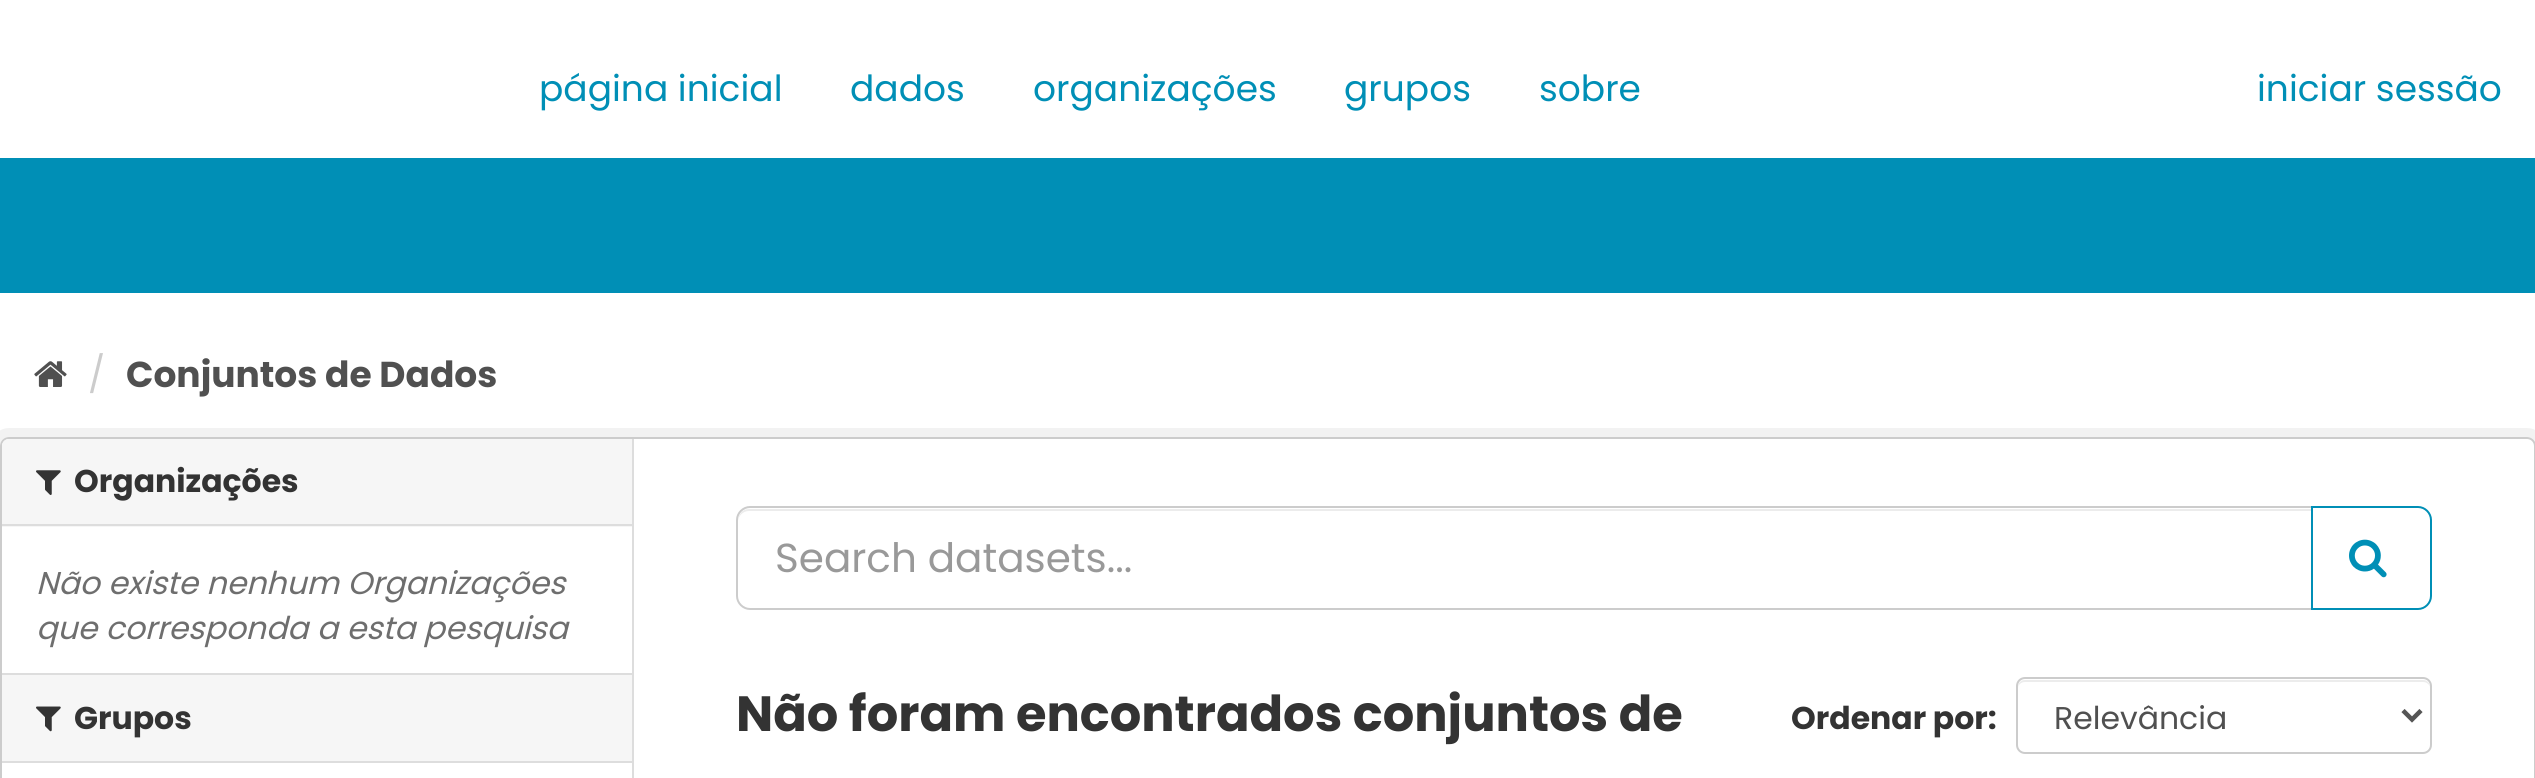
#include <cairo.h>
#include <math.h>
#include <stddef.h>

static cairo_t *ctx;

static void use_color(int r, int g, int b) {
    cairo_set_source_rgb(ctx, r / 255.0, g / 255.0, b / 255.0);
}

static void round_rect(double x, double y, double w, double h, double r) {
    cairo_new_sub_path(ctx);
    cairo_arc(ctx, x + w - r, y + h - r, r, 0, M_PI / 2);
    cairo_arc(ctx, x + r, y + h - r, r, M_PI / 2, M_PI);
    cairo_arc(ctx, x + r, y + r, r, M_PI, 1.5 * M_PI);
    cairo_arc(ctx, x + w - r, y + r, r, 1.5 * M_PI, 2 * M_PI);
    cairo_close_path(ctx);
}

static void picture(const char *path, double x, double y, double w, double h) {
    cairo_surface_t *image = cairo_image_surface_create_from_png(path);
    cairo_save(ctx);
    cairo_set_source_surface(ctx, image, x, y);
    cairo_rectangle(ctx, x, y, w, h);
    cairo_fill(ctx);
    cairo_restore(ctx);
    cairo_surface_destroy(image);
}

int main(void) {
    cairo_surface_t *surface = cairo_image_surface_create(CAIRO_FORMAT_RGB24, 2535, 778);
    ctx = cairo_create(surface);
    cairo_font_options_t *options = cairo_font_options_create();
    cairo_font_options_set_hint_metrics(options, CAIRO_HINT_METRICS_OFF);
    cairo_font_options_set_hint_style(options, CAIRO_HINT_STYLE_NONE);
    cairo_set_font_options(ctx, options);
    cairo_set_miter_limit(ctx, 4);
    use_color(255, 255, 255);
    cairo_paint(ctx);
    use_color(0, 143, 182);
    cairo_rectangle(ctx, 0, 158, 2535, 135);
    cairo_fill(ctx);
    cairo_select_font_face(ctx, "Poppins", CAIRO_FONT_SLANT_NORMAL, CAIRO_FONT_WEIGHT_NORMAL);
    cairo_set_font_size(ctx, 36);
    cairo_move_to(ctx, 539, 101);
    cairo_show_text(ctx, "página inicial");
    cairo_move_to(ctx, 850, 101);
    cairo_show_text(ctx, "dados");
    cairo_move_to(ctx, 1033, 101);
    cairo_show_text(ctx, "organizações");
    cairo_move_to(ctx, 1344, 101);
    cairo_show_text(ctx, "grupos");
    cairo_move_to(ctx, 1539, 101);
    cairo_show_text(ctx, "sobre");
    cairo_move_to(ctx, 2257, 101);
    cairo_show_text(ctx, "iniciar sessão");
    picture("img1.png", 34, 361, 33, 26);
    use_color(204, 204, 204);
    cairo_move_to(ctx, 88, 387);
    cairo_show_text(ctx, "/");
    cairo_select_font_face(ctx, "Poppins", CAIRO_FONT_SLANT_NORMAL, CAIRO_FONT_WEIGHT_BOLD);
    use_color(80, 80, 80);
    cairo_move_to(ctx, 126, 387);
    cairo_show_text(ctx, "Conjuntos de Dados");
    round_rect(-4.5, 432.5, 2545, 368, 13.5);
    use_color(242, 242, 242);
    cairo_set_line_width(ctx, 9);
    cairo_stroke(ctx);
    use_color(255, 255, 255);
    round_rect(1, 438, 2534, 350, 8);
    cairo_fill_preserve(ctx);
    use_color(204, 204, 204);
    cairo_set_line_width(ctx, 2);
    cairo_stroke(ctx);
    use_color(246, 246, 246);
    cairo_new_path(ctx);
    cairo_move_to(ctx, 9, 439);
    cairo_line_to(ctx, 632, 439);
    cairo_line_to(ctx, 632, 527);
    cairo_line_to(ctx, 2, 527);
    cairo_line_to(ctx, 2, 446);
    cairo_curve_to(ctx, 2, 442, 5, 439, 9, 439);
    cairo_close_path(ctx);
    cairo_fill(ctx);
    use_color(221, 221, 221);
    cairo_rectangle(ctx, 2, 524, 630, 2);
    cairo_fill(ctx);
    picture("img2.png", 36, 470, 25, 25);
    cairo_set_font_size(ctx, 31.5);
    use_color(51, 51, 51);
    cairo_move_to(ctx, 74, 492);
    cairo_show_text(ctx, "Organizações");
    cairo_select_font_face(ctx, "Poppins", CAIRO_FONT_SLANT_ITALIC, CAIRO_FONT_WEIGHT_NORMAL);
    use_color(110, 110, 110);
    cairo_move_to(ctx, 36, 594);
    cairo_show_text(ctx, "Não existe nenhum Organizações");
    cairo_move_to(ctx, 36, 639);
    cairo_show_text(ctx, "que corresponda a esta pesquisa");
    use_color(246, 246, 246);
    cairo_rectangle(ctx, 2, 675, 630, 86);
    cairo_fill(ctx);
    use_color(221, 221, 221);
    cairo_rectangle(ctx, 2, 673, 630, 2);
    cairo_fill(ctx);
    cairo_rectangle(ctx, 2, 761, 630, 2);
    cairo_fill(ctx);
    picture("img3.png", 36, 706, 25, 26);
    cairo_select_font_face(ctx, "Poppins", CAIRO_FONT_SLANT_NORMAL, CAIRO_FONT_WEIGHT_BOLD);
    use_color(51, 51, 51);
    cairo_move_to(ctx, 74, 729);
    cairo_show_text(ctx, "Grupos");
    use_color(221, 221, 221);
    cairo_rectangle(ctx, 632, 439, 2, 339);
    cairo_fill(ctx);
    use_color(236, 236, 236);
    cairo_new_path(ctx);
    cairo_move_to(ctx, 749, 511);
    cairo_line_to(ctx, 2311, 511);
    cairo_line_to(ctx, 2311, 509);
    cairo_line_to(ctx, 749, 509);
    cairo_curve_to(ctx, 742, 509, 738, 515, 738, 522);
    cairo_curve_to(ctx, 738, 516, 743, 511, 749, 511);
    cairo_close_path(ctx);
    cairo_fill(ctx);
    cairo_new_path(ctx);
    cairo_move_to(ctx, 750, 507);
    cairo_line_to(ctx, 2312, 507);
    cairo_line_to(ctx, 2312, 609);
    cairo_line_to(ctx, 750, 609);
    cairo_curve_to(ctx, 743, 609, 737, 603, 737, 596);
    cairo_line_to(ctx, 737, 520);
    cairo_curve_to(ctx, 737, 513, 743, 507, 750, 507);
    cairo_close_path(ctx);
    use_color(204, 204, 204);
    cairo_stroke(ctx);
    cairo_select_font_face(ctx, "Poppins", CAIRO_FONT_SLANT_NORMAL, CAIRO_FONT_WEIGHT_NORMAL);
    cairo_set_font_size(ctx, 40.5);
    use_color(153, 153, 153);
    cairo_move_to(ctx, 775, 572);
    cairo_show_text(ctx, "Search datasets...");
    use_color(255, 255, 255);
    cairo_new_path(ctx);
    cairo_move_to(ctx, 2312, 507);
    cairo_line_to(ctx, 2418, 507);
    cairo_curve_to(ctx, 2425, 507, 2431, 513, 2431, 520);
    cairo_line_to(ctx, 2431, 596);
    cairo_curve_to(ctx, 2431, 603, 2425, 609, 2418, 609);
    cairo_line_to(ctx, 2312, 609);
    cairo_close_path(ctx);
    cairo_fill_preserve(ctx);
    use_color(0, 143, 182);
    cairo_stroke(ctx);
    picture("img4.png", 2349, 539, 38, 39);
    cairo_select_font_face(ctx, "Poppins", CAIRO_FONT_SLANT_NORMAL, CAIRO_FONT_WEIGHT_BOLD);
    cairo_set_font_size(ctx, 49.5);
    use_color(51, 51, 51);
    cairo_move_to(ctx, 736, 731);
    cairo_show_text(ctx, "Não foram encontrados conjuntos de");
    cairo_set_font_size(ctx, 31.5);
    cairo_move_to(ctx, 1791, 729);
    cairo_show_text(ctx, "Ordenar por:");
    use_color(236, 236, 236);
    cairo_new_path(ctx);
    cairo_move_to(ctx, 2025, 682);
    cairo_line_to(ctx, 2423, 682);
    cairo_curve_to(ctx, 2427, 682, 2430, 685, 2430, 688);
    cairo_curve_to(ctx, 2430, 684, 2428, 680, 2423, 680);
    cairo_line_to(ctx, 2025, 680);
    cairo_curve_to(ctx, 2020, 680, 2018, 684, 2018, 688);
    cairo_curve_to(ctx, 2018, 685, 2021, 682, 2025, 682);
    cairo_close_path(ctx);
    cairo_fill(ctx);
    round_rect(2017, 678, 414, 75, 8);
    use_color(204, 204, 204);
    cairo_stroke(ctx);
    cairo_new_path(ctx);
    cairo_move_to(ctx, 2403, 710.5);
    cairo_line_to(ctx, 2412, 719.5);
    cairo_line_to(ctx, 2421, 710.5);
    use_color(85, 85, 85);
    cairo_set_line_width(ctx, 4.5);
    cairo_stroke(ctx);
    cairo_select_font_face(ctx, "Poppins", CAIRO_FONT_SLANT_NORMAL, CAIRO_FONT_WEIGHT_NORMAL);
    use_color(80, 80, 80);
    cairo_move_to(ctx, 2054, 729);
    cairo_show_text(ctx, "Relevância");
    cairo_surface_write_to_png(surface, "result.png");
    cairo_font_options_destroy(options);
    cairo_destroy(ctx);
    cairo_surface_destroy(surface);
    return 0;
}
